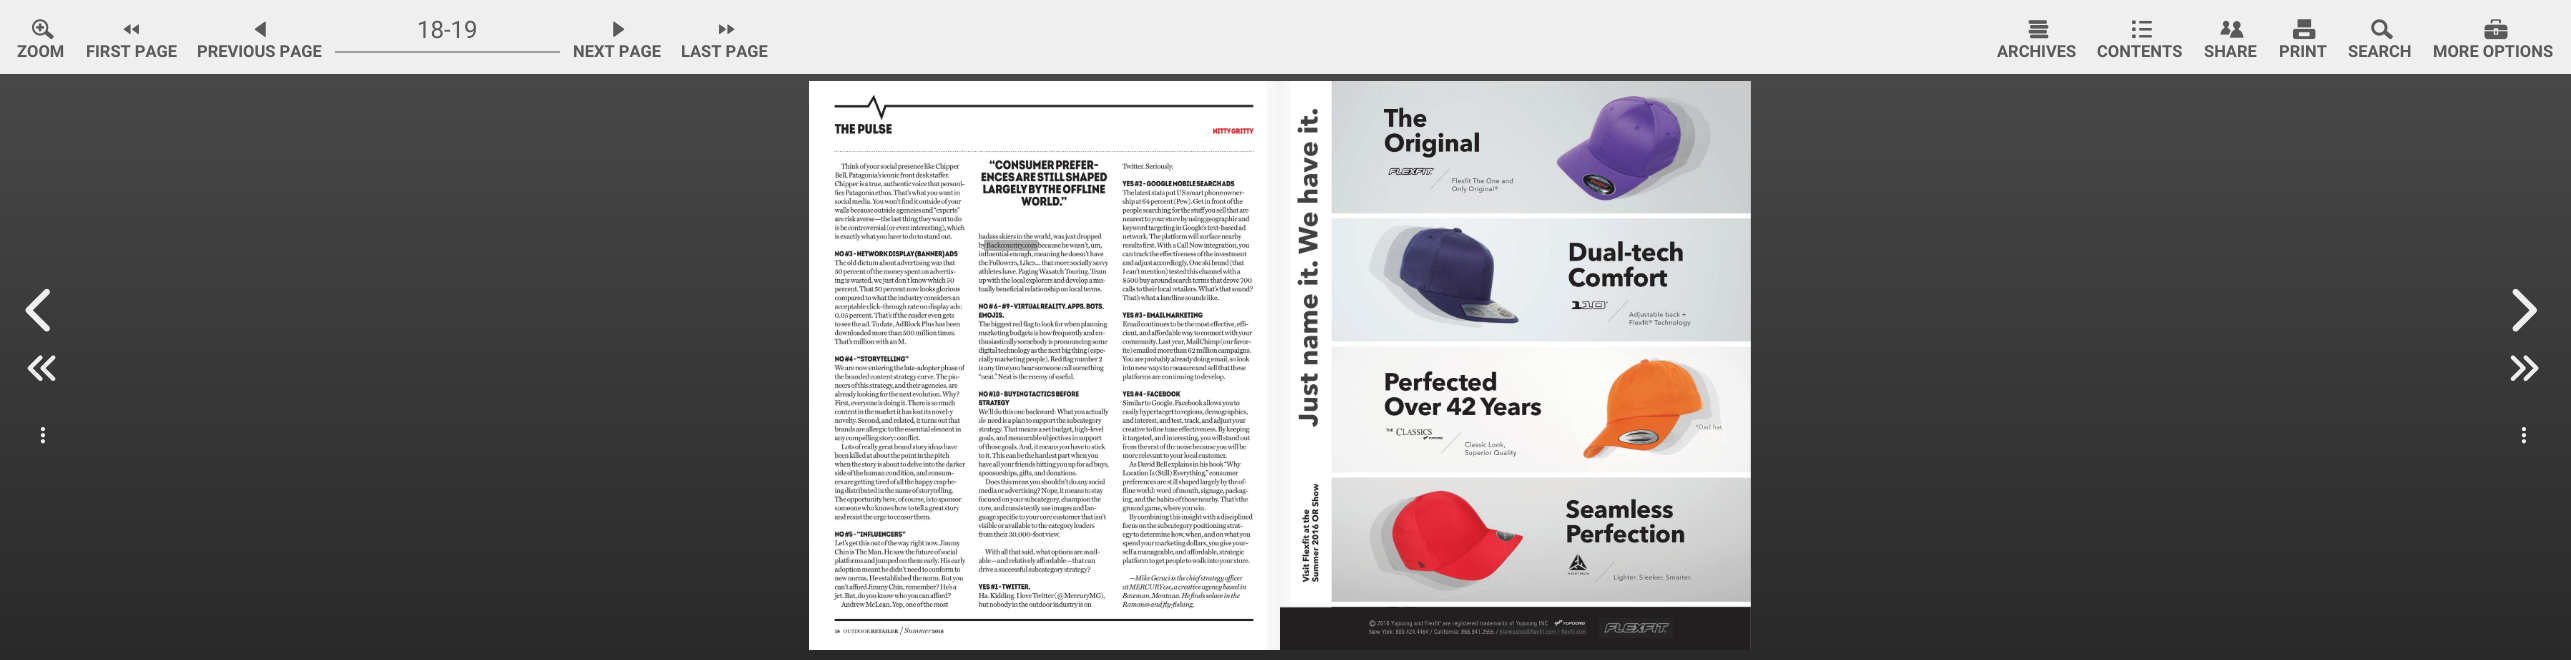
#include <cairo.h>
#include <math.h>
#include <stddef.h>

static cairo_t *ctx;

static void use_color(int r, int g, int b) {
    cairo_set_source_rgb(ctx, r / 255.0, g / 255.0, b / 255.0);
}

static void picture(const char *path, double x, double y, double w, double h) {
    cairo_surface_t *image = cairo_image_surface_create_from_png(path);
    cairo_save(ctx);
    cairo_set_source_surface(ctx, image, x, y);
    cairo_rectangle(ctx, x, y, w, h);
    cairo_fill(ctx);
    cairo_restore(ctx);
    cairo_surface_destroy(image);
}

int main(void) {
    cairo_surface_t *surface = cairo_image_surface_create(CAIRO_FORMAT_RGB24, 2571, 660);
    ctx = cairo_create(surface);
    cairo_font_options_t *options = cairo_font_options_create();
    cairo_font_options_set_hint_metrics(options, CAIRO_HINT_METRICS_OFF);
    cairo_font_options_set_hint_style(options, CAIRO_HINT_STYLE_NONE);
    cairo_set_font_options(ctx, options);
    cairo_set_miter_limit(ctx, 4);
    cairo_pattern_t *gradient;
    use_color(255, 255, 255);
    cairo_paint(ctx);
    gradient = cairo_pattern_create_linear(1286, 0, 1286, 660);
    cairo_pattern_add_color_stop_rgba(gradient, 0, 0.298, 0.298, 0.298, 1);
    cairo_pattern_add_color_stop_rgba(gradient, 1, 0.161, 0.161, 0.161, 1);
    cairo_set_source(ctx, gradient);
    cairo_pattern_destroy(gradient);
    cairo_rectangle(ctx, 0, 74, 2571, 586);
    cairo_fill(ctx);
    gradient = cairo_pattern_create_linear(1286, 0, 1286, 660);
    cairo_pattern_add_color_stop_rgba(gradient, 0, 0.996, 0.996, 0.996, 1);
    cairo_pattern_add_color_stop_rgba(gradient, 1, 0.996, 0.996, 0.996, 1);
    cairo_set_source(ctx, gradient);
    cairo_pattern_destroy(gradient);
    cairo_rectangle(ctx, 809, 81, 471, 569);
    cairo_fill(ctx);
    use_color(239, 239, 239);
    cairo_rectangle(ctx, 0, 0, 2571, 74);
    cairo_fill(ctx);
    use_color(158, 158, 158);
    cairo_rectangle(ctx, 335, 51, 225, 2);
    cairo_fill(ctx);
    cairo_select_font_face(ctx, "Roboto", CAIRO_FONT_SLANT_NORMAL, CAIRO_FONT_WEIGHT_NORMAL);
    cairo_set_font_size(ctx, 24);
    use_color(90, 90, 90);
    cairo_move_to(ctx, 417, 38);
    cairo_show_text(ctx, "18-19");
    picture("img1.png", 32, 19, 22, 20);
    cairo_select_font_face(ctx, "Roboto", CAIRO_FONT_SLANT_NORMAL, CAIRO_FONT_WEIGHT_BOLD);
    cairo_set_font_size(ctx, 16.5);
    cairo_move_to(ctx, 17, 57);
    cairo_show_text(ctx, "ZOOM");
    picture("img2.png", 123, 24, 16, 11);
    cairo_move_to(ctx, 86, 57);
    cairo_show_text(ctx, "FIRST PAGE");
    picture("img3.png", 254, 21, 12, 16);
    cairo_move_to(ctx, 197, 57);
    cairo_show_text(ctx, "PREVIOUS PAGE");
    picture("img4.png", 613, 21, 12, 16);
    cairo_move_to(ctx, 573, 57);
    cairo_show_text(ctx, "NEXT PAGE");
    picture("img5.png", 719, 24, 16, 11);
    cairo_move_to(ctx, 681, 57);
    cairo_show_text(ctx, "LAST PAGE");
    picture("img6.png", 2028, 20, 21, 19);
    cairo_move_to(ctx, 1997, 57);
    cairo_show_text(ctx, "ARCHIVES");
    picture("img7.png", 2132, 20, 20, 19);
    cairo_move_to(ctx, 2097, 57);
    cairo_show_text(ctx, "CONTENTS");
    picture("img8.png", 2220, 20, 24, 18);
    cairo_move_to(ctx, 2204, 57);
    cairo_show_text(ctx, "SHARE");
    picture("img9.png", 2293, 19, 23, 21);
    cairo_move_to(ctx, 2279, 57);
    cairo_show_text(ctx, "PRINT");
    picture("img10.png", 2371, 19, 22, 21);
    cairo_move_to(ctx, 2348, 57);
    cairo_show_text(ctx, "SEARCH");
    picture("img11.png", 2484, 19, 24, 21);
    cairo_move_to(ctx, 2433, 57);
    cairo_show_text(ctx, "MORE OPTIONS");
    picture("img12.png", 25, 288, 25, 44);
    picture("img13.png", 27, 355, 29, 26);
    picture("img14.png", 40, 427, 5, 17);
    picture("img15.png", 809, 81, 471, 569);
    picture("img16.png", 833, 94, 430, 542);
    gradient = cairo_pattern_create_linear(809, 367, 1280, 367);
    cairo_pattern_add_color_stop_rgba(gradient, 0.95, 0, 0, 0, 0);
    cairo_pattern_add_color_stop_rgba(gradient, 1, 0, 0, 0, 0.05);
    cairo_set_source(ctx, gradient);
    cairo_pattern_destroy(gradient);
    cairo_rectangle(ctx, 1267, 81, 13, 569);
    cairo_fill(ctx);
    picture("img17.png", 833, 94, 422, 541);
    cairo_set_source_rgba(ctx, 0.247, 0.247, 0.247, 0.4);
    cairo_rectangle(ctx, 984, 240, 54, 11);
    cairo_fill(ctx);
    picture("img18.png", 1280, 81, 471, 569);
    picture("img19.png", 1280, 81, 471, 569);
    picture("img20.png", 1280, 81, 471, 569);
    gradient = cairo_pattern_create_linear(1751, 367, 1280, 367);
    cairo_pattern_add_color_stop_rgba(gradient, 0.95, 0, 0, 0, 0);
    cairo_pattern_add_color_stop_rgba(gradient, 1, 0, 0, 0, 0.04);
    cairo_set_source(ctx, gradient);
    cairo_pattern_destroy(gradient);
    cairo_rectangle(ctx, 1280, 81, 11, 527);
    cairo_fill(ctx);
    cairo_set_source_rgba(ctx, 0.169, 0.169, 0.169, 0.4);
    cairo_rectangle(ctx, 1497, 626, 60, 10);
    cairo_fill(ctx);
    cairo_rectangle(ctx, 1557, 626, 30, 10);
    cairo_fill(ctx);
    cairo_rectangle(ctx, 1599, 618, 74, 20);
    cairo_fill(ctx);
    picture("img21.png", 2512, 288, 25, 44);
    picture("img22.png", 2510, 355, 29, 26);
    picture("img14.png", 2521, 427, 5, 17);
    cairo_surface_write_to_png(surface, "result.png");
    cairo_font_options_destroy(options);
    cairo_destroy(ctx);
    cairo_surface_destroy(surface);
    return 0;
}
